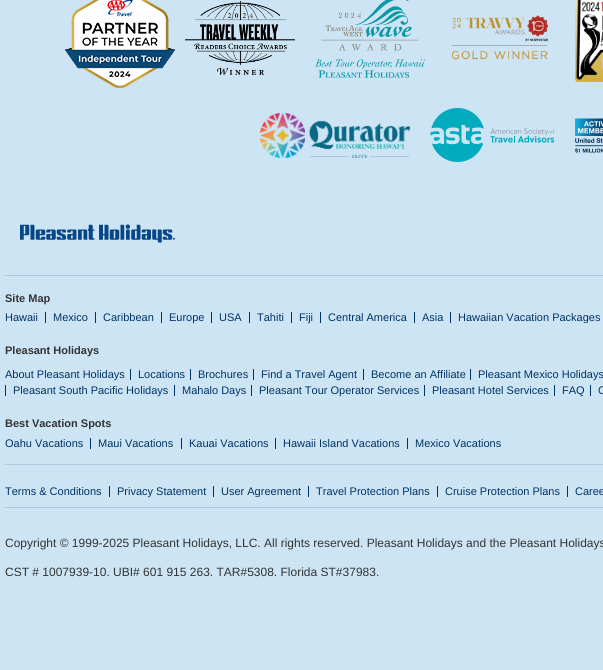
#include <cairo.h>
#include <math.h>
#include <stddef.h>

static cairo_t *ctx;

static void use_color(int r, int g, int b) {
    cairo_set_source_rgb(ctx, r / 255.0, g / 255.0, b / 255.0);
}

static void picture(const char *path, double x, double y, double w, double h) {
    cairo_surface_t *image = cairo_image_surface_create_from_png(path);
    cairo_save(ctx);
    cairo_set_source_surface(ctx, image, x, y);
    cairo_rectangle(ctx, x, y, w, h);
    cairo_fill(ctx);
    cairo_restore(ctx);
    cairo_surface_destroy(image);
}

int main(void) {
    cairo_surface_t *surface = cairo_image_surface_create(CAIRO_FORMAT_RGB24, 603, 670);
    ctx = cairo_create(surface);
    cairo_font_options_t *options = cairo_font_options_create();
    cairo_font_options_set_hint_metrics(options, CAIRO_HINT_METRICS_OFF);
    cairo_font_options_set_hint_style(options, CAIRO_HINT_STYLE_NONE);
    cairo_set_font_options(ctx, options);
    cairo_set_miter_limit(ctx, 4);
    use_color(204, 228, 244);
    cairo_paint(ctx);
    picture("img1.png", 65, 0, 110, 88);
    picture("img2.png", 185, 1, 110, 74);
    picture("img3.png", 315, 0, 110, 78);
    picture("img4.png", 452, 15, 97, 45);
    picture("img5.png", 575, 0, 28, 82);
    picture("img6.png", 260, 113, 150, 45);
    picture("img7.png", 430, 108, 125, 54);
    picture("img8.png", 575, 118, 28, 35);
    picture("img9.png", 20, 224, 155, 19);
    use_color(170, 204, 221);
    cairo_rectangle(ctx, 5, 275, 598, 1);
    cairo_fill(ctx);
    cairo_select_font_face(ctx, "Liberation Sans", CAIRO_FONT_SLANT_NORMAL, CAIRO_FONT_WEIGHT_BOLD);
    cairo_set_font_size(ctx, 11);
    use_color(51, 51, 51);
    cairo_move_to(ctx, 5, 302);
    cairo_show_text(ctx, "Site Map");
    cairo_select_font_face(ctx, "Liberation Sans", CAIRO_FONT_SLANT_NORMAL, CAIRO_FONT_WEIGHT_NORMAL);
    use_color(0, 51, 102);
    cairo_move_to(ctx, 5, 321);
    cairo_show_text(ctx, "Hawaii");
    cairo_rectangle(ctx, 45, 312, 1, 11);
    cairo_fill(ctx);
    cairo_move_to(ctx, 53, 321);
    cairo_show_text(ctx, "Mexico");
    cairo_rectangle(ctx, 95, 312, 1, 11);
    cairo_fill(ctx);
    cairo_move_to(ctx, 103, 321);
    cairo_show_text(ctx, "Caribbean");
    cairo_rectangle(ctx, 161, 312, 1, 11);
    cairo_fill(ctx);
    cairo_move_to(ctx, 169, 321);
    cairo_show_text(ctx, "Europe");
    cairo_rectangle(ctx, 211, 312, 1, 11);
    cairo_fill(ctx);
    cairo_move_to(ctx, 219, 321);
    cairo_show_text(ctx, "USA");
    cairo_rectangle(ctx, 249, 312, 1, 11);
    cairo_fill(ctx);
    cairo_move_to(ctx, 257, 321);
    cairo_show_text(ctx, "Tahiti");
    cairo_rectangle(ctx, 291, 312, 1, 11);
    cairo_fill(ctx);
    cairo_move_to(ctx, 299, 321);
    cairo_show_text(ctx, "Fiji");
    cairo_rectangle(ctx, 320, 312, 1, 11);
    cairo_fill(ctx);
    cairo_move_to(ctx, 328, 321);
    cairo_show_text(ctx, "Central America");
    cairo_rectangle(ctx, 414, 312, 1, 11);
    cairo_fill(ctx);
    cairo_move_to(ctx, 422, 321);
    cairo_show_text(ctx, "Asia");
    cairo_rectangle(ctx, 450, 312, 1, 11);
    cairo_fill(ctx);
    cairo_save(ctx);
    cairo_rectangle(ctx, 5, 312, 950, 11);
    cairo_clip(ctx);
    cairo_move_to(ctx, 458, 321);
    cairo_show_text(ctx, "Hawaiian Vacation Packages");
    cairo_restore(ctx);
    cairo_select_font_face(ctx, "Liberation Sans", CAIRO_FONT_SLANT_NORMAL, CAIRO_FONT_WEIGHT_BOLD);
    use_color(51, 51, 51);
    cairo_move_to(ctx, 5, 354);
    cairo_show_text(ctx, "Pleasant Holidays");
    cairo_select_font_face(ctx, "Liberation Sans", CAIRO_FONT_SLANT_NORMAL, CAIRO_FONT_WEIGHT_NORMAL);
    use_color(0, 51, 102);
    cairo_move_to(ctx, 5, 378);
    cairo_show_text(ctx, "About Pleasant Holidays");
    cairo_rectangle(ctx, 130, 369, 1, 11);
    cairo_fill(ctx);
    cairo_move_to(ctx, 138, 378);
    cairo_show_text(ctx, "Locations");
    cairo_rectangle(ctx, 190, 369, 1, 11);
    cairo_fill(ctx);
    cairo_move_to(ctx, 198, 378);
    cairo_show_text(ctx, "Brochures");
    cairo_rectangle(ctx, 253, 369, 1, 11);
    cairo_fill(ctx);
    cairo_move_to(ctx, 261, 378);
    cairo_show_text(ctx, "Find a Travel Agent");
    cairo_rectangle(ctx, 363, 369, 1, 11);
    cairo_fill(ctx);
    cairo_move_to(ctx, 371, 378);
    cairo_show_text(ctx, "Become an Affiliate");
    cairo_rectangle(ctx, 470, 369, 1, 11);
    cairo_fill(ctx);
    cairo_move_to(ctx, 478, 378);
    cairo_show_text(ctx, "Pleasant Mexico Holidays");
    cairo_rectangle(ctx, 5, 385, 1, 11);
    cairo_fill(ctx);
    cairo_move_to(ctx, 13, 394);
    cairo_show_text(ctx, "Pleasant South Pacific Holidays");
    cairo_rectangle(ctx, 174, 385, 1, 11);
    cairo_fill(ctx);
    cairo_move_to(ctx, 182, 394);
    cairo_show_text(ctx, "Mahalo Days");
    cairo_rectangle(ctx, 251, 385, 1, 11);
    cairo_fill(ctx);
    cairo_move_to(ctx, 259, 394);
    cairo_show_text(ctx, "Pleasant Tour Operator Services");
    cairo_rectangle(ctx, 424, 385, 1, 11);
    cairo_fill(ctx);
    cairo_move_to(ctx, 432, 394);
    cairo_show_text(ctx, "Pleasant Hotel Services");
    cairo_rectangle(ctx, 554, 385, 1, 11);
    cairo_fill(ctx);
    cairo_move_to(ctx, 562, 394);
    cairo_show_text(ctx, "FAQ");
    cairo_rectangle(ctx, 590, 385, 1, 11);
    cairo_fill(ctx);
    cairo_move_to(ctx, 598, 394);
    cairo_show_text(ctx, "C");
    cairo_select_font_face(ctx, "Liberation Sans", CAIRO_FONT_SLANT_NORMAL, CAIRO_FONT_WEIGHT_BOLD);
    use_color(51, 51, 51);
    cairo_move_to(ctx, 5, 427);
    cairo_show_text(ctx, "Best Vacation Spots");
    cairo_select_font_face(ctx, "Liberation Sans", CAIRO_FONT_SLANT_NORMAL, CAIRO_FONT_WEIGHT_NORMAL);
    use_color(0, 51, 102);
    cairo_move_to(ctx, 5, 447);
    cairo_show_text(ctx, "Oahu Vacations");
    cairo_rectangle(ctx, 90, 438, 1, 11);
    cairo_fill(ctx);
    cairo_move_to(ctx, 98, 447);
    cairo_show_text(ctx, "Maui Vacations");
    cairo_rectangle(ctx, 181, 438, 1, 11);
    cairo_fill(ctx);
    cairo_move_to(ctx, 189, 447);
    cairo_show_text(ctx, "Kauai Vacations");
    cairo_rectangle(ctx, 275, 438, 1, 11);
    cairo_fill(ctx);
    cairo_move_to(ctx, 283, 447);
    cairo_show_text(ctx, "Hawaii Island Vacations");
    cairo_rectangle(ctx, 407, 438, 1, 11);
    cairo_fill(ctx);
    cairo_move_to(ctx, 415, 447);
    cairo_show_text(ctx, "Mexico Vacations");
    use_color(170, 204, 221);
    cairo_rectangle(ctx, 5, 464, 598, 1);
    cairo_fill(ctx);
    use_color(0, 51, 102);
    cairo_move_to(ctx, 5, 495);
    cairo_show_text(ctx, "Terms & Conditions");
    cairo_rectangle(ctx, 109, 486, 1, 11);
    cairo_fill(ctx);
    cairo_move_to(ctx, 117, 495);
    cairo_show_text(ctx, "Privacy Statement");
    cairo_rectangle(ctx, 213, 486, 1, 11);
    cairo_fill(ctx);
    cairo_save(ctx);
    cairo_rectangle(ctx, 5, 486, 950, 11);
    cairo_clip(ctx);
    cairo_move_to(ctx, 221, 495);
    cairo_show_text(ctx, "User Agreement");
    cairo_restore(ctx);
    cairo_rectangle(ctx, 308, 486, 1, 11);
    cairo_fill(ctx);
    cairo_move_to(ctx, 316, 495);
    cairo_show_text(ctx, "Travel Protection Plans");
    cairo_rectangle(ctx, 437, 486, 1, 11);
    cairo_fill(ctx);
    cairo_move_to(ctx, 445, 495);
    cairo_show_text(ctx, "Cruise Protection Plans");
    cairo_rectangle(ctx, 567, 486, 1, 11);
    cairo_fill(ctx);
    cairo_move_to(ctx, 575, 495);
    cairo_show_text(ctx, "Caree");
    use_color(170, 204, 221);
    cairo_rectangle(ctx, 5, 507, 598, 1);
    cairo_fill(ctx);
    cairo_set_font_size(ctx, 12);
    use_color(51, 51, 51);
    cairo_move_to(ctx, 5, 547);
    cairo_show_text(ctx, "Copyright © 1999-2025 Pleasant Holidays, LLC. All rights reserved. Pleasant Holidays and the Pleasant Holidays");
    cairo_move_to(ctx, 5, 576);
    cairo_show_text(ctx, "CST # 1007939-10. UBI# 601 915 263. TAR#5308. Florida ST#37983.");
    cairo_surface_write_to_png(surface, "result.png");
    cairo_font_options_destroy(options);
    cairo_destroy(ctx);
    cairo_surface_destroy(surface);
    return 0;
}
